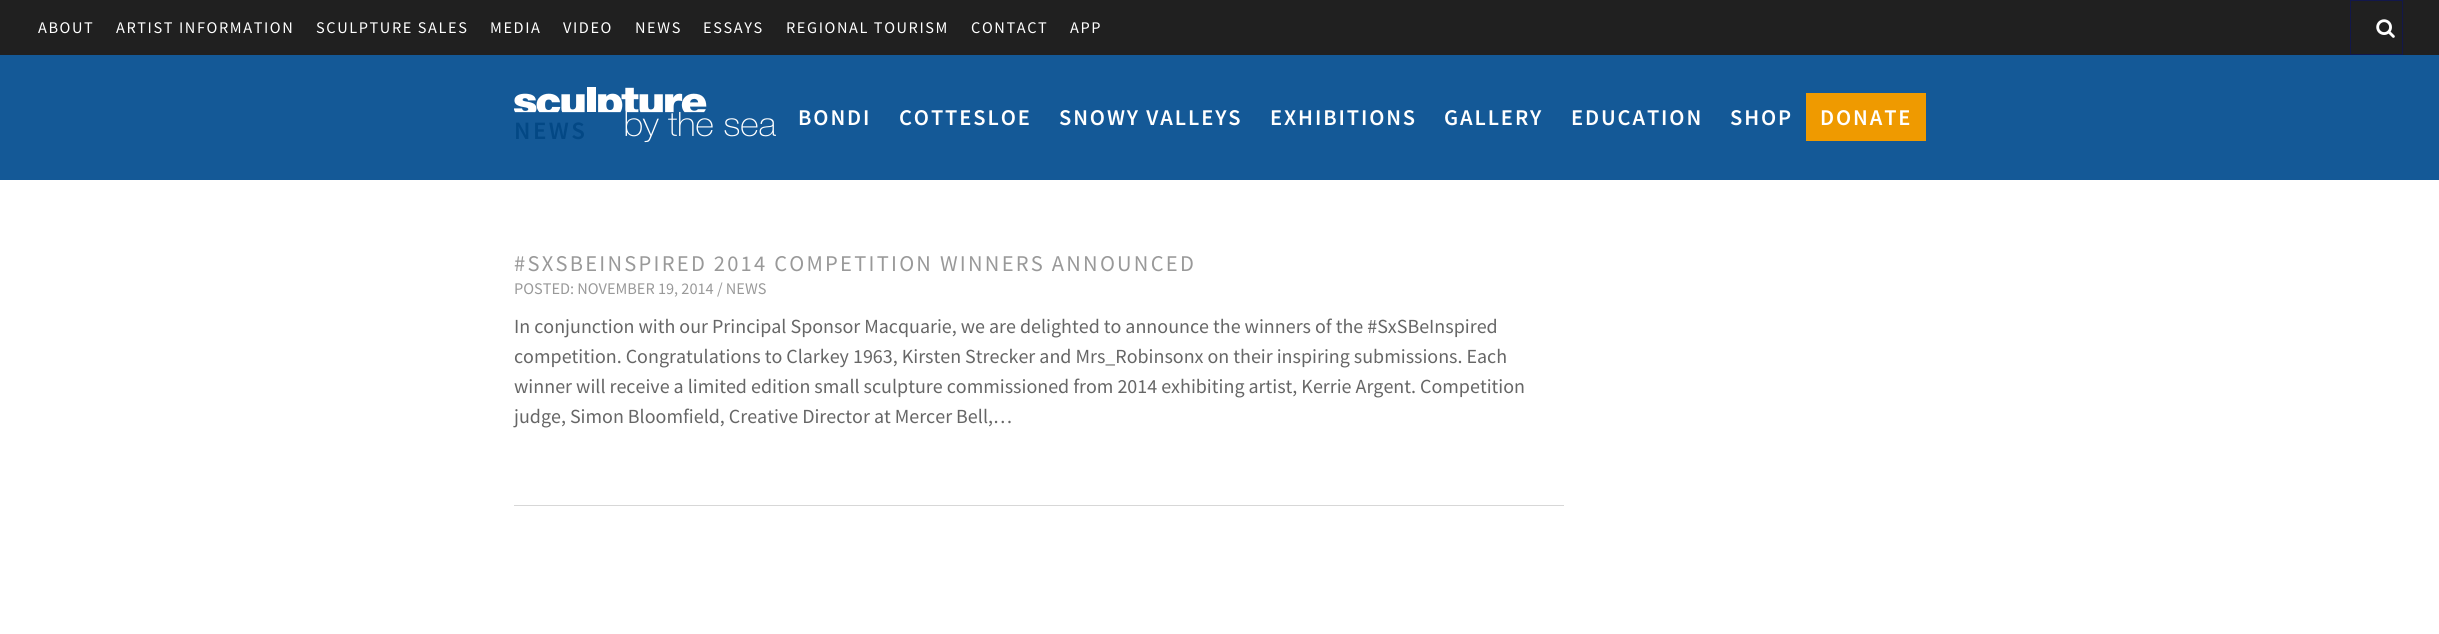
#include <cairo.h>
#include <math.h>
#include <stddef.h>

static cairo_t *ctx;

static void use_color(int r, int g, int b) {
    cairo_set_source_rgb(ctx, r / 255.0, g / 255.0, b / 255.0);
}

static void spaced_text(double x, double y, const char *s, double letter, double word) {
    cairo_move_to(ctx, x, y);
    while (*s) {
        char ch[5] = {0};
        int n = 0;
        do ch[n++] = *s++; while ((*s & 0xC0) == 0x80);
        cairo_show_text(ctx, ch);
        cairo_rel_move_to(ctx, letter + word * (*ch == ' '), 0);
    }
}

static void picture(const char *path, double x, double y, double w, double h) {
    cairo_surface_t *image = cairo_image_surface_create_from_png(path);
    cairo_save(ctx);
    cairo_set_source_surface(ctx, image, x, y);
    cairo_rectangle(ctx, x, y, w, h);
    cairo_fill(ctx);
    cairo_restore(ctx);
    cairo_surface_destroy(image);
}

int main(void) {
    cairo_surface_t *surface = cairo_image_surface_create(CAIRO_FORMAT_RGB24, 2439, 634);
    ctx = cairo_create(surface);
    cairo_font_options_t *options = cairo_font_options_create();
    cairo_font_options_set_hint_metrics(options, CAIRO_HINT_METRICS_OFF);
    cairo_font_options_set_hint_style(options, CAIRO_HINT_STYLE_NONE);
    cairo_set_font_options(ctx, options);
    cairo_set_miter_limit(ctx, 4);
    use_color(255, 255, 255);
    cairo_paint(ctx);
    use_color(20, 89, 151);
    cairo_rectangle(ctx, 0, 55, 2439, 125);
    cairo_fill(ctx);
    use_color(32, 32, 32);
    cairo_rectangle(ctx, 0, 0, 2439, 55);
    cairo_fill(ctx);
    cairo_select_font_face(ctx, "Source Sans Pro", CAIRO_FONT_SLANT_NORMAL, CAIRO_FONT_WEIGHT_NORMAL);
    cairo_set_font_size(ctx, 16.25);
    use_color(255, 255, 255);
    spaced_text(38, 33, "ABOUT", 1.6, 0);
    spaced_text(116, 33, "ARTIST INFORMATION", 1.6, 0);
    spaced_text(316, 33, "SCULPTURE SALES", 1.6, 0);
    spaced_text(490, 33, "MEDIA", 1.6, 0);
    spaced_text(563, 33, "VIDEO", 1.6, 0);
    spaced_text(635, 33, "NEWS", 1.6, 0);
    spaced_text(703, 33, "ESSAYS", 1.6, 0);
    spaced_text(786, 33, "REGIONAL TOURISM", 1.6, 0);
    spaced_text(971, 33, "CONTACT", 1.6, 0);
    spaced_text(1070, 33, "APP", 1.6, 0);
    cairo_rectangle(ctx, 2350.5, 0.5, 52, 54);
    use_color(18, 23, 75);
    cairo_set_line_width(ctx, 1);
    cairo_stroke(ctx);
    picture("img1.png", 2376, 19, 19, 19);
    cairo_select_font_face(ctx, "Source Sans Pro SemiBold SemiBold", CAIRO_FONT_SLANT_NORMAL, CAIRO_FONT_WEIGHT_NORMAL);
    cairo_set_font_size(ctx, 25);
    use_color(3, 72, 133);
    spaced_text(514, 139, "NEWS", 2.5, 0);
    picture("img2.png", 514, 87, 262, 56);
    cairo_set_font_size(ctx, 22.5);
    use_color(255, 255, 255);
    spaced_text(798, 125, "BONDI", 1.9, 0);
    spaced_text(899, 125, "COTTESLOE", 1.9, 0);
    spaced_text(1059, 125, "SNOWY VALLEYS", 1.9, 0);
    spaced_text(1270, 125, "EXHIBITIONS", 1.9, 0);
    spaced_text(1444, 125, "GALLERY", 1.9, 0);
    spaced_text(1571, 125, "EDUCATION", 1.9, 0);
    spaced_text(1730, 125, "SHOP", 1.9, 0);
    use_color(239, 154, 0);
    cairo_rectangle(ctx, 1806, 93, 120, 48);
    cairo_fill(ctx);
    use_color(255, 255, 255);
    spaced_text(1820, 125, "DONATE", 1.9, 0);
    cairo_select_font_face(ctx, "Source Sans Pro", CAIRO_FONT_SLANT_NORMAL, CAIRO_FONT_WEIGHT_NORMAL);
    use_color(153, 153, 153);
    spaced_text(514, 271, "#SXSBEINSPIRED 2014 COMPETITION WINNERS ANNOUNCED", 2.25, 0);
    cairo_set_font_size(ctx, 16.25);
    cairo_move_to(ctx, 514, 294);
    cairo_show_text(ctx, "POSTED: NOVEMBER 19, 2014 / NEWS");
    cairo_set_font_size(ctx, 20);
    use_color(102, 102, 102);
    cairo_move_to(ctx, 514, 333);
    cairo_show_text(ctx, "In conjunction with our Principal Sponsor Macquarie, we are delighted to announce the winners of the #SxSBeInspired");
    cairo_move_to(ctx, 514, 363);
    cairo_show_text(ctx, "competition. Congratulations to Clarkey 1963, Kirsten Strecker and Mrs_Robinsonx on their inspiring submissions. Each");
    cairo_move_to(ctx, 514, 393);
    cairo_show_text(ctx, "winner will receive a limited edition small sculpture commissioned from 2014 exhibiting artist, Kerrie Argent. Competition");
    cairo_move_to(ctx, 514, 423);
    cairo_show_text(ctx, "judge, Simon Bloomfield, Creative Director at Mercer Bell,…");
    use_color(215, 215, 215);
    cairo_rectangle(ctx, 514, 505, 1050, 1);
    cairo_fill(ctx);
    cairo_surface_write_to_png(surface, "result.png");
    cairo_font_options_destroy(options);
    cairo_destroy(ctx);
    cairo_surface_destroy(surface);
    return 0;
}
